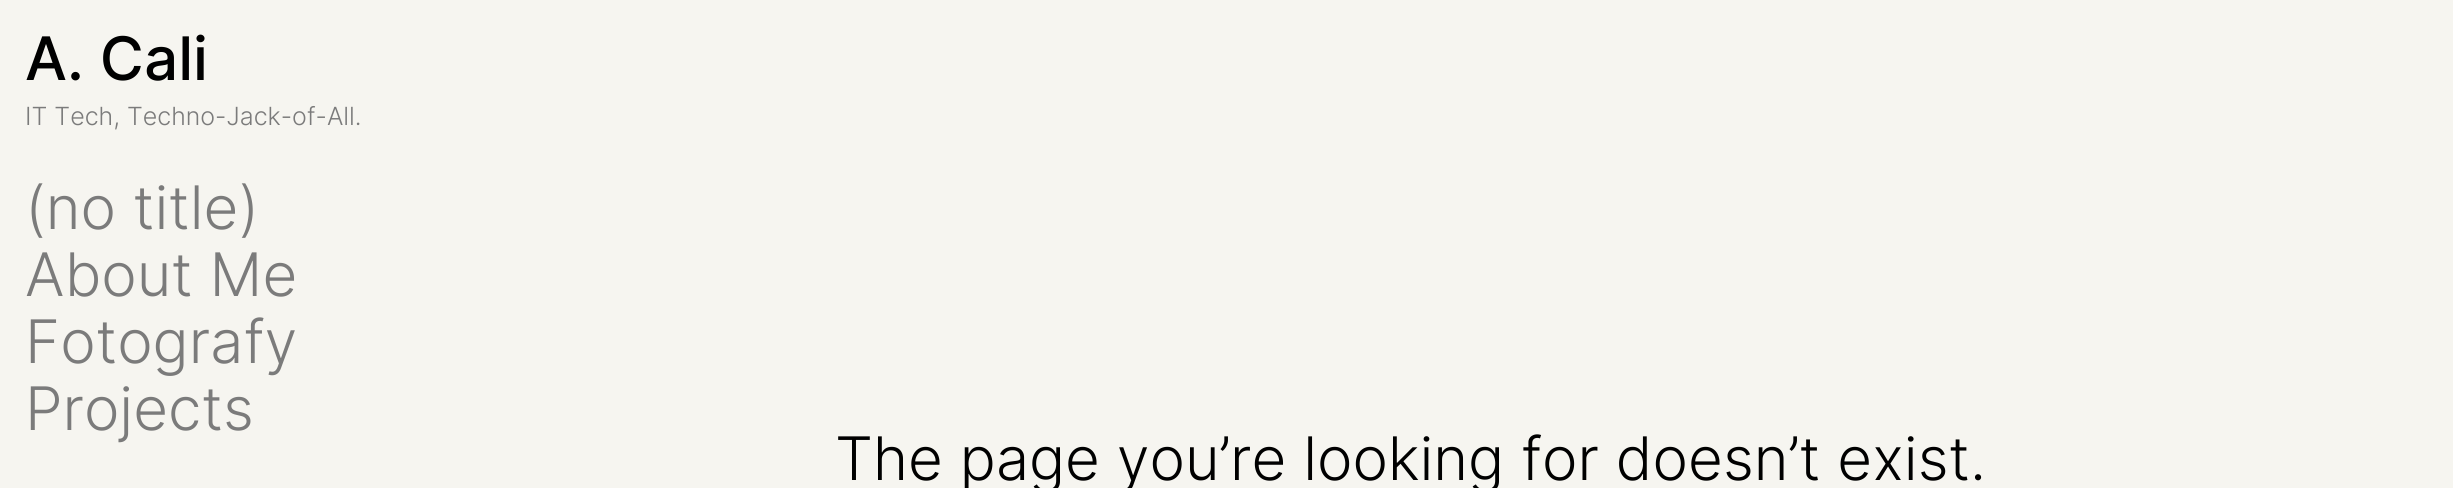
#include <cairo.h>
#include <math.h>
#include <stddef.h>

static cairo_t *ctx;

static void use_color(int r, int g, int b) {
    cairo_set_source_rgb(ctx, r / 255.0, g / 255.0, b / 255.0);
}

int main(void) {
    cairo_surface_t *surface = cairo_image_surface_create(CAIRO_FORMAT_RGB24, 2453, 488);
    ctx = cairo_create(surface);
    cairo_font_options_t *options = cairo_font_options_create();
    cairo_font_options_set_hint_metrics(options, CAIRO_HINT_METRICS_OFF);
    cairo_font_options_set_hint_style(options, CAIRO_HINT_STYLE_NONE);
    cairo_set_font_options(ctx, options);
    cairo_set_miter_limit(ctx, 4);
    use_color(246, 245, 240);
    cairo_paint(ctx);
    cairo_select_font_face(ctx, "Inter Medium", CAIRO_FONT_SLANT_NORMAL, CAIRO_FONT_WEIGHT_NORMAL);
    cairo_set_font_size(ctx, 60);
    use_color(0, 0, 0);
    cairo_move_to(ctx, 25, 80);
    cairo_show_text(ctx, "A. Cali");
    cairo_select_font_face(ctx, "Inter Light", CAIRO_FONT_SLANT_NORMAL, CAIRO_FONT_WEIGHT_NORMAL);
    cairo_set_font_size(ctx, 25);
    use_color(123, 123, 123);
    cairo_move_to(ctx, 25, 125);
    cairo_show_text(ctx, "IT Tech, Techno-Jack-of-All.");
    cairo_set_font_size(ctx, 60);
    cairo_move_to(ctx, 25, 229);
    cairo_show_text(ctx, "(no title)");
    cairo_move_to(ctx, 25, 296);
    cairo_show_text(ctx, "About Me");
    cairo_move_to(ctx, 25, 363);
    cairo_show_text(ctx, "Fotografy");
    cairo_move_to(ctx, 25, 430);
    cairo_show_text(ctx, "Projects");
    use_color(0, 0, 0);
    cairo_move_to(ctx, 835, 480);
    cairo_show_text(ctx, "The page you’re looking for doesn’t exist.");
    cairo_surface_write_to_png(surface, "result.png");
    cairo_font_options_destroy(options);
    cairo_destroy(ctx);
    cairo_surface_destroy(surface);
    return 0;
}
